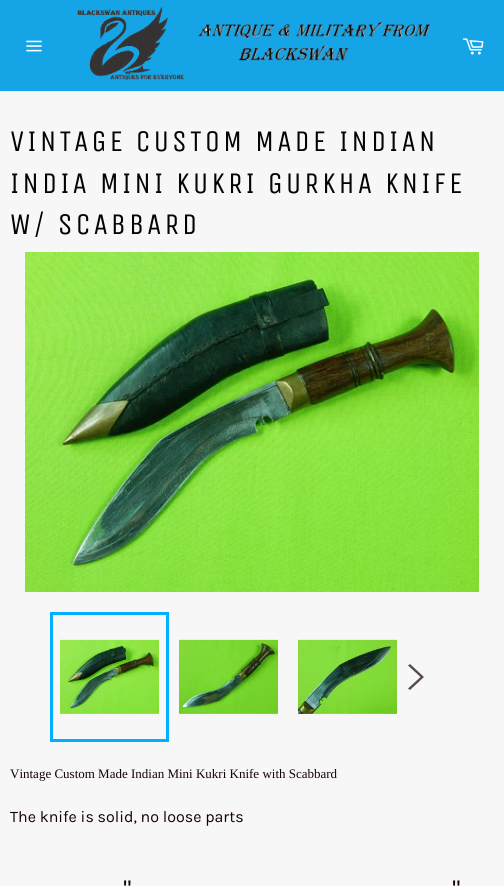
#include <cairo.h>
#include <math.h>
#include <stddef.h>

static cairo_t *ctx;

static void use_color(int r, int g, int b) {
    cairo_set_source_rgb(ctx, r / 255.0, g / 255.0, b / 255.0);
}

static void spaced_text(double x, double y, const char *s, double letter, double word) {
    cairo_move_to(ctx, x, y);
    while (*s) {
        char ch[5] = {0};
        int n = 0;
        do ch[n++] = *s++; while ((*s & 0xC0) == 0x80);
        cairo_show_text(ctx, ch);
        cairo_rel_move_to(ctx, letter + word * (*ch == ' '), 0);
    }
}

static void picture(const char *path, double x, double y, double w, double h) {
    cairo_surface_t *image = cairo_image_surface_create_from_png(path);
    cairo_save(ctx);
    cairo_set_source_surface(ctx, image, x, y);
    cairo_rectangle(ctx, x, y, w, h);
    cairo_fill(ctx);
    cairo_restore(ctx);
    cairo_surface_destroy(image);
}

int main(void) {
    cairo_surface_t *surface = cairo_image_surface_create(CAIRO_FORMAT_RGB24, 504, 886);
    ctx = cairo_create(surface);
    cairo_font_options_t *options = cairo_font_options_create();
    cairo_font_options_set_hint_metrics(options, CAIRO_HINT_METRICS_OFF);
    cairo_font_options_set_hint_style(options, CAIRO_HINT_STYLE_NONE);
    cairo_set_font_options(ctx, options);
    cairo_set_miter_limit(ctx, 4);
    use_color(21, 165, 230);
    cairo_paint(ctx);
    picture("img1.png", 26, 40, 16, 12);
    picture("img2.png", 77, 6, 108, 74);
    picture("img3.png", 198, 21, 233, 40);
    picture("img4.png", 462, 38, 22, 17);
    use_color(247, 247, 247);
    cairo_rectangle(ctx, 0, 91, 504, 795);
    cairo_fill(ctx);
    cairo_select_font_face(ctx, "Unica One", CAIRO_FONT_SLANT_NORMAL, CAIRO_FONT_WEIGHT_NORMAL);
    cairo_set_font_size(ctx, 30);
    use_color(3, 3, 3);
    spaced_text(10, 151, "VINTAGE CUSTOM MADE INDIAN", 3, 0);
    spaced_text(10, 193, "INDIA MINI KUKRI GURKHA KNIFE", 3, 0);
    spaced_text(10, 234, "W/ SCABBARD", 3, 0);
    picture("img5.png", 25, 252, 454, 340);
    picture("img6.png", 60, 639, 99, 75);
    cairo_rectangle(ctx, 51.5, 613.5, 116, 127);
    use_color(0, 176, 255);
    cairo_set_line_width(ctx, 3);
    cairo_stroke(ctx);
    picture("img7.png", 179, 639, 99, 75);
    picture("img8.png", 298, 639, 99, 75);
    use_color(90, 75, 75);
    cairo_new_path(ctx);
    cairo_move_to(ctx, 408, 665.5);
    cairo_line_to(ctx, 410, 664);
    cairo_line_to(ctx, 424, 677);
    cairo_line_to(ctx, 410, 690);
    cairo_line_to(ctx, 408, 688.5);
    cairo_line_to(ctx, 420.5, 677);
    cairo_close_path(ctx);
    cairo_fill(ctx);
    cairo_select_font_face(ctx, "Liberation Serif", CAIRO_FONT_SLANT_NORMAL, CAIRO_FONT_WEIGHT_NORMAL);
    cairo_set_font_size(ctx, 13);
    use_color(22, 1, 1);
    cairo_move_to(ctx, 10, 778);
    cairo_show_text(ctx, "Vintage Custom Made Indian Mini Kukri Knife with Scabbard");
    cairo_select_font_face(ctx, "Karla", CAIRO_FONT_SLANT_NORMAL, CAIRO_FONT_WEIGHT_NORMAL);
    cairo_set_font_size(ctx, 16);
    cairo_move_to(ctx, 10, 822);
    cairo_show_text(ctx, "The knife is solid, no loose parts");
    cairo_select_font_face(ctx, "Liberation Sans", CAIRO_FONT_SLANT_NORMAL, CAIRO_FONT_WEIGHT_NORMAL);
    cairo_set_font_size(ctx, 24);
    cairo_move_to(ctx, 123, 897);
    cairo_show_text(ctx, "\"");
    cairo_move_to(ctx, 452, 897);
    cairo_show_text(ctx, "\"");
    cairo_surface_write_to_png(surface, "result.png");
    cairo_font_options_destroy(options);
    cairo_destroy(ctx);
    cairo_surface_destroy(surface);
    return 0;
}
